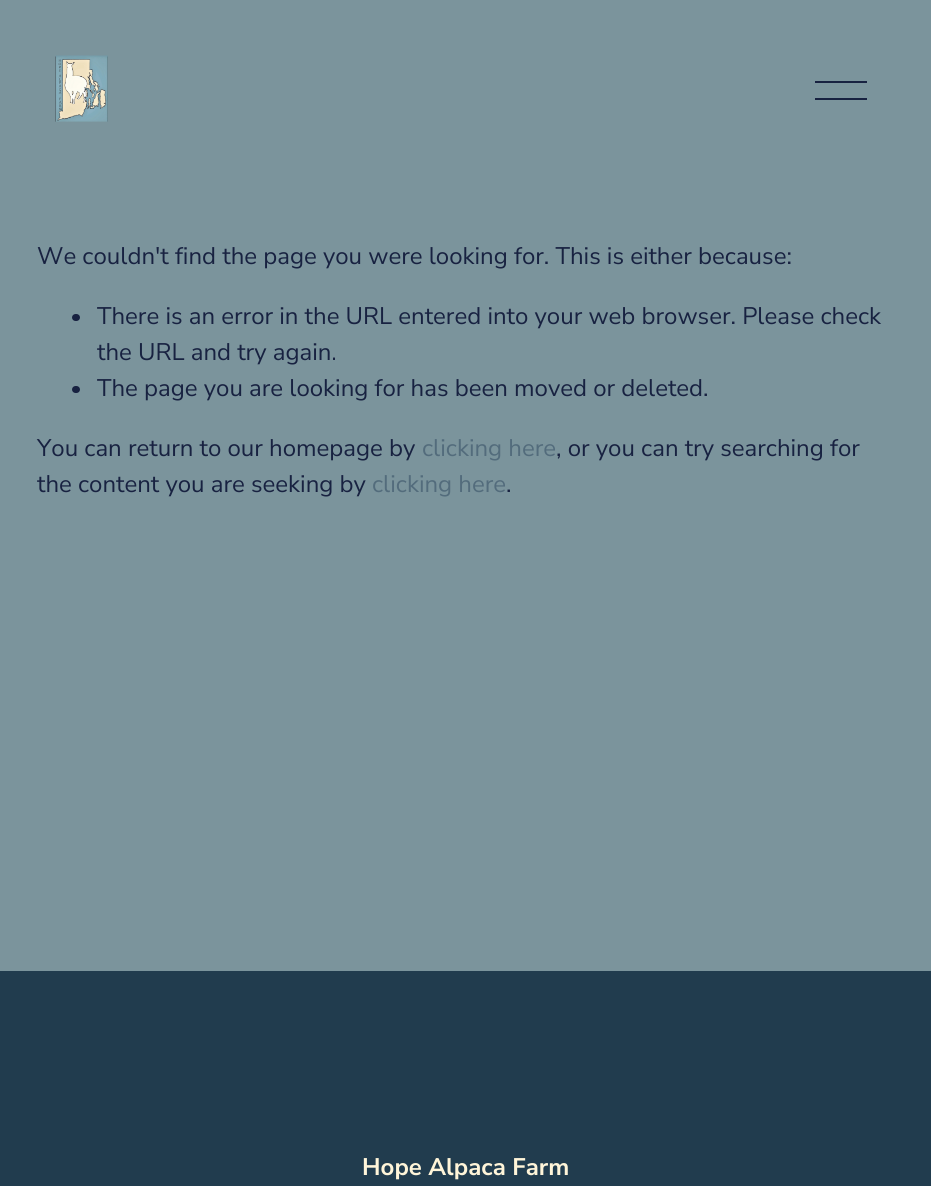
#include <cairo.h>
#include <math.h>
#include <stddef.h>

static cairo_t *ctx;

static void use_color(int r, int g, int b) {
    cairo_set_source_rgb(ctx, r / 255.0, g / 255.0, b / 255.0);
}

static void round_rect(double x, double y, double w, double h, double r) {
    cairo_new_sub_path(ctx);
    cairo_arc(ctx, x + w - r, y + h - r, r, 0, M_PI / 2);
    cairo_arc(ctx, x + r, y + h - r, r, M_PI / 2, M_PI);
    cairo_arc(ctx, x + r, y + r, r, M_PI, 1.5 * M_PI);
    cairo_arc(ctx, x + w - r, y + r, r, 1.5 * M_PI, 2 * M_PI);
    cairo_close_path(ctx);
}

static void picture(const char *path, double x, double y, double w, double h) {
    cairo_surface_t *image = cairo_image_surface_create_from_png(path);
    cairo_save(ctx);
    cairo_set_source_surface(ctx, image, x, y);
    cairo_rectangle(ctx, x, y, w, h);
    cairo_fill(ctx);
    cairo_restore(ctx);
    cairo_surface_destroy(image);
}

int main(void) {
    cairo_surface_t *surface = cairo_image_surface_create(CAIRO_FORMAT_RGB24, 931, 1186);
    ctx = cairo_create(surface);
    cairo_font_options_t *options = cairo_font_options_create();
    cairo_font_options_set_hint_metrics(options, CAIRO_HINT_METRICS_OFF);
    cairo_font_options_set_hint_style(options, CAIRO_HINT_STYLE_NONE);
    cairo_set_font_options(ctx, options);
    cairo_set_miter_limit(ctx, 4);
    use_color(123, 148, 156);
    cairo_paint(ctx);
    picture("img1.png", 55, 55, 53, 67);
    use_color(24, 34, 65);
    cairo_rectangle(ctx, 815, 81, 52, 2);
    cairo_fill(ctx);
    cairo_rectangle(ctx, 815, 98, 52, 2);
    cairo_fill(ctx);
    cairo_select_font_face(ctx, "Nunito Sans", CAIRO_FONT_SLANT_NORMAL, CAIRO_FONT_WEIGHT_NORMAL);
    cairo_set_font_size(ctx, 24);
    cairo_move_to(ctx, 37, 264);
    cairo_show_text(ctx, "We couldn't find the page you were looking for. This is either because:");
    round_rect(72, 314, 8, 7, 3.5);
    cairo_fill(ctx);
    cairo_move_to(ctx, 97, 324);
    cairo_show_text(ctx, "There is an error in the URL entered into your web browser. Please check");
    cairo_move_to(ctx, 97, 360);
    cairo_show_text(ctx, "the URL and try again.");
    round_rect(72, 386, 8, 7, 3.5);
    cairo_fill(ctx);
    cairo_move_to(ctx, 97, 396);
    cairo_show_text(ctx, "The page you are looking for has been moved or deleted.");
    cairo_move_to(ctx, 37, 456);
    cairo_show_text(ctx, "You can return to our homepage by");
    use_color(83, 108, 124);
    cairo_move_to(ctx, 422, 456);
    cairo_show_text(ctx, "clicking here");
    use_color(24, 34, 65);
    cairo_move_to(ctx, 556, 456);
    cairo_show_text(ctx, ", or you can try searching for");
    cairo_move_to(ctx, 37, 492);
    cairo_show_text(ctx, "the content you are seeking by");
    use_color(83, 108, 124);
    cairo_move_to(ctx, 372, 492);
    cairo_show_text(ctx, "clicking here");
    use_color(24, 34, 65);
    cairo_move_to(ctx, 506, 492);
    cairo_show_text(ctx, ".");
    use_color(33, 60, 78);
    cairo_rectangle(ctx, 0, 971, 931, 215);
    cairo_fill(ctx);
    cairo_select_font_face(ctx, "Nunito Sans", CAIRO_FONT_SLANT_NORMAL, CAIRO_FONT_WEIGHT_BOLD);
    use_color(255, 245, 217);
    cairo_move_to(ctx, 362, 1175);
    cairo_show_text(ctx, "Hope Alpaca Farm");
    cairo_surface_write_to_png(surface, "result.png");
    cairo_font_options_destroy(options);
    cairo_destroy(ctx);
    cairo_surface_destroy(surface);
    return 0;
}
